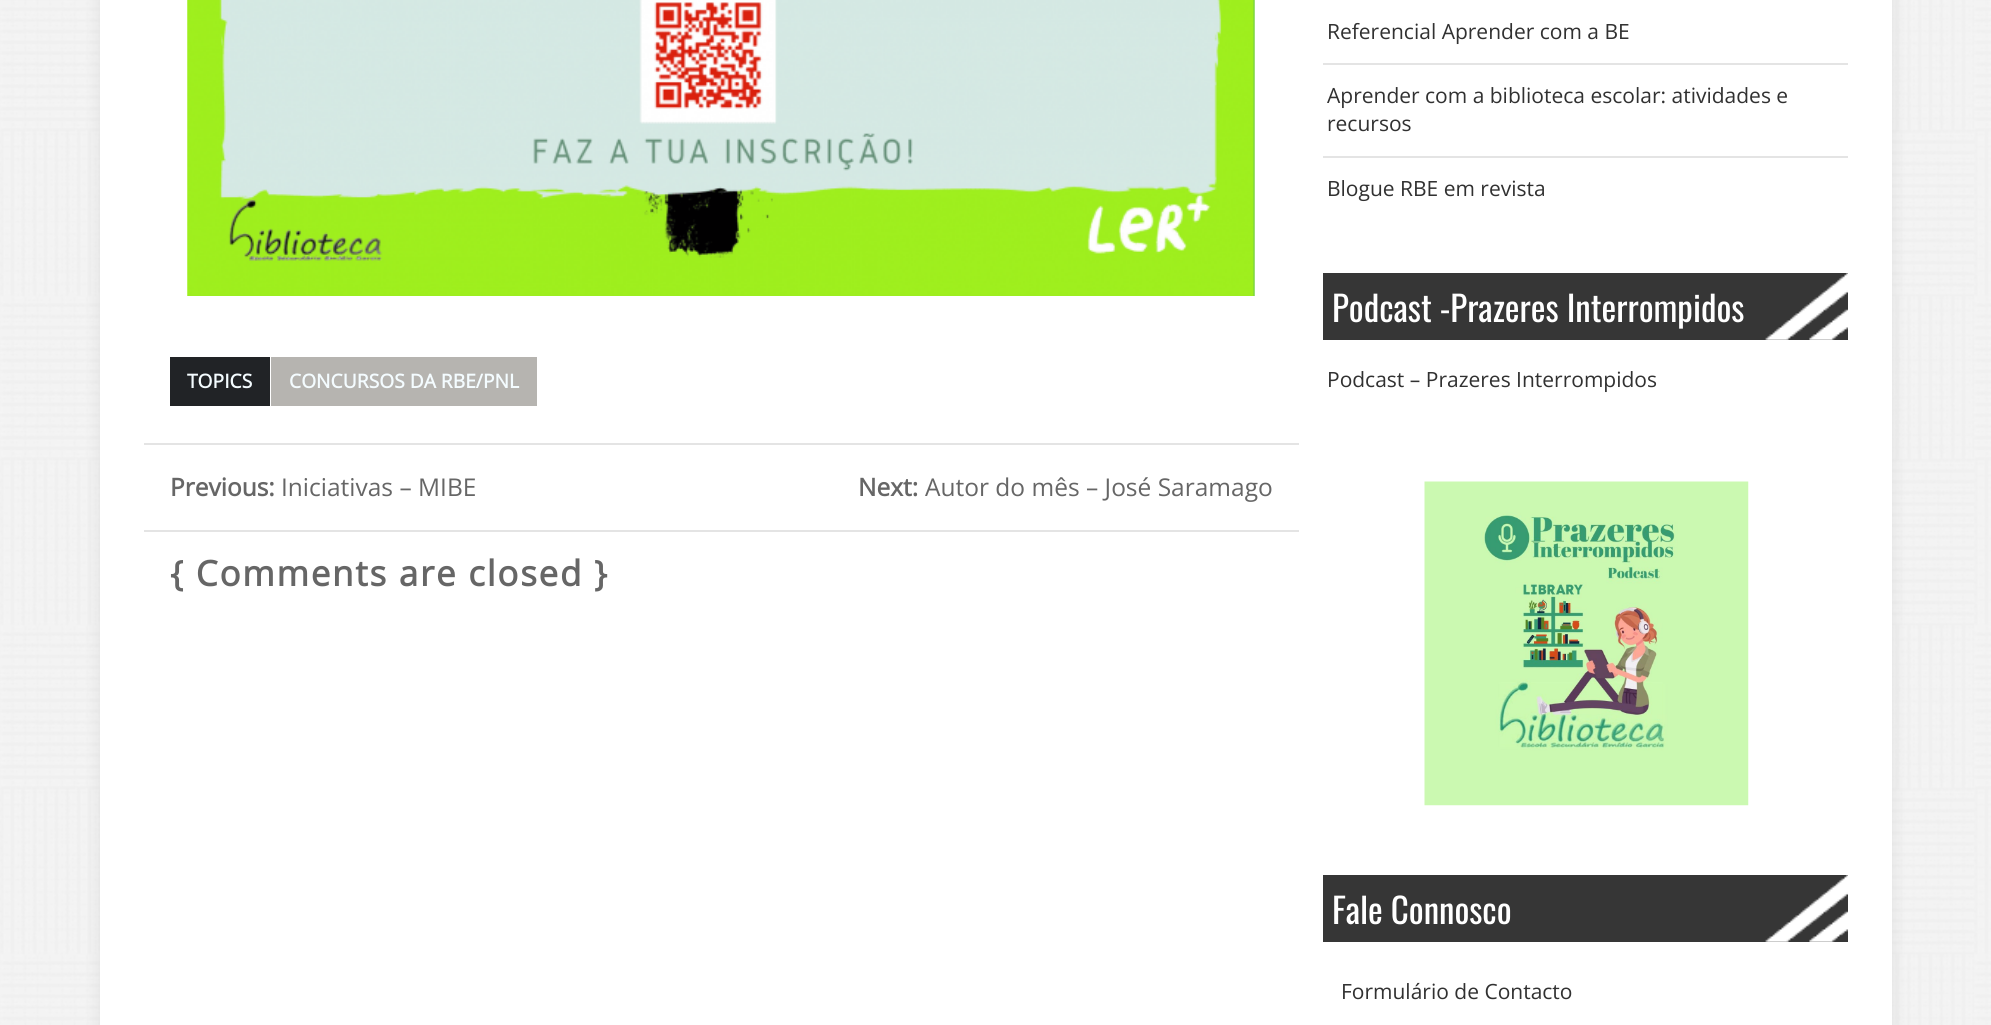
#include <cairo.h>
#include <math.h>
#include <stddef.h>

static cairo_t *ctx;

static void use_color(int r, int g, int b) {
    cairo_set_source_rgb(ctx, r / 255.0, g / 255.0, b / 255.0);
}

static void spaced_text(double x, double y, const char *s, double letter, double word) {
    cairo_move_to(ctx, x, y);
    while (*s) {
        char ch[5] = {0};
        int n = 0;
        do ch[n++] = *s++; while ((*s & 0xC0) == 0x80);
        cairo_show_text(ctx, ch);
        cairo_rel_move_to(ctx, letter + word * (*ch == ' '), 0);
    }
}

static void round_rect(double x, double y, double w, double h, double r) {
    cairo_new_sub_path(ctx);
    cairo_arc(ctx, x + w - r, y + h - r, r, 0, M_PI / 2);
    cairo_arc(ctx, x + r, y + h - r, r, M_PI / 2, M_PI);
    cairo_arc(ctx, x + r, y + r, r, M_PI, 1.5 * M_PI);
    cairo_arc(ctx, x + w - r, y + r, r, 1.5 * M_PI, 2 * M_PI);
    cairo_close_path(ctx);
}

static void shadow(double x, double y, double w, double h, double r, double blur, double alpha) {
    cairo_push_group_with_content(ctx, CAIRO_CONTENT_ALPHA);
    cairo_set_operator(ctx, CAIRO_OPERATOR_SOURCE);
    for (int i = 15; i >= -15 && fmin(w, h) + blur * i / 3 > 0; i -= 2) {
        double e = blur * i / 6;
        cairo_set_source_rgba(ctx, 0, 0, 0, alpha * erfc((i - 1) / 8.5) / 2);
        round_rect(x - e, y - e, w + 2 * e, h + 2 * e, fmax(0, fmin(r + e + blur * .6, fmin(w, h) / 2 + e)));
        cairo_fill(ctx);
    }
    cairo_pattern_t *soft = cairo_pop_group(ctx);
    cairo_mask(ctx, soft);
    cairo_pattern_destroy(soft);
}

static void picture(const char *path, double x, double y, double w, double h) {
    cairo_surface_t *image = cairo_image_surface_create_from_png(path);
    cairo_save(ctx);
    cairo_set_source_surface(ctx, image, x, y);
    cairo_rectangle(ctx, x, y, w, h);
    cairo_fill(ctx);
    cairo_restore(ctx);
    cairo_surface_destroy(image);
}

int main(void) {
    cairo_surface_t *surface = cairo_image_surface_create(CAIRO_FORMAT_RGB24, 1991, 1025);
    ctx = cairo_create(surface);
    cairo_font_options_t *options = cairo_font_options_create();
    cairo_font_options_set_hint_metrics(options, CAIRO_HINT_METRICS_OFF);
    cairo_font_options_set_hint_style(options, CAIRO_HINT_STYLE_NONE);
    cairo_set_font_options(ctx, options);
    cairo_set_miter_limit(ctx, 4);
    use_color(255, 255, 255);
    cairo_paint(ctx);
    picture("img1.png", 0, 0, 1991, 1025);
    use_color(0, 0, 0);
    shadow(100, -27, 1792, 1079, 0, 9, 0.08);
    use_color(255, 255, 255);
    cairo_rectangle(ctx, 100, 0, 1792, 1025);
    cairo_fill(ctx);
    picture("img2.png", 187, 0, 1068, 296);
    use_color(33, 35, 38);
    cairo_rectangle(ctx, 170, 357, 100, 49);
    cairo_fill(ctx);
    cairo_select_font_face(ctx, "Open Sans", CAIRO_FONT_SLANT_NORMAL, CAIRO_FONT_WEIGHT_BOLD);
    cairo_set_font_size(ctx, 19.25);
    use_color(244, 252, 255);
    cairo_move_to(ctx, 187, 388);
    cairo_show_text(ctx, "TOPICS");
    use_color(182, 180, 176);
    cairo_rectangle(ctx, 271, 357, 266, 49);
    cairo_fill(ctx);
    use_color(244, 252, 255);
    cairo_move_to(ctx, 289, 388);
    cairo_show_text(ctx, "CONCURSOS DA RBE/PNL");
    use_color(228, 228, 228);
    cairo_rectangle(ctx, 144, 443, 1155, 2);
    cairo_fill(ctx);
    cairo_rectangle(ctx, 144, 530, 1155, 2);
    cairo_fill(ctx);
    cairo_set_font_size(ctx, 24.5);
    use_color(102, 102, 102);
    cairo_move_to(ctx, 170, 496);
    cairo_show_text(ctx, "Previous:");
    cairo_select_font_face(ctx, "Open Sans", CAIRO_FONT_SLANT_NORMAL, CAIRO_FONT_WEIGHT_NORMAL);
    cairo_move_to(ctx, 281, 496);
    cairo_show_text(ctx, "Iniciativas – MIBE");
    cairo_select_font_face(ctx, "Open Sans", CAIRO_FONT_SLANT_NORMAL, CAIRO_FONT_WEIGHT_BOLD);
    cairo_move_to(ctx, 858, 496);
    cairo_show_text(ctx, "Next:");
    cairo_select_font_face(ctx, "Open Sans", CAIRO_FONT_SLANT_NORMAL, CAIRO_FONT_WEIGHT_NORMAL);
    cairo_move_to(ctx, 925, 496);
    cairo_show_text(ctx, "Autor do mês – José Saramago");
    cairo_select_font_face(ctx, "Open Sans", CAIRO_FONT_SLANT_NORMAL, CAIRO_FONT_WEIGHT_BOLD);
    cairo_set_font_size(ctx, 35);
    spaced_text(170, 586, "{ Comments are closed }", 1.75, 0);
    use_color(228, 228, 228);
    cairo_rectangle(ctx, 1323, 63, 525, 2);
    cairo_fill(ctx);
    cairo_select_font_face(ctx, "Open Sans", CAIRO_FONT_SLANT_NORMAL, CAIRO_FONT_WEIGHT_NORMAL);
    cairo_set_font_size(ctx, 21);
    use_color(49, 49, 49);
    cairo_move_to(ctx, 1327, 39);
    cairo_show_text(ctx, "Referencial Aprender com a BE");
    use_color(228, 228, 228);
    cairo_rectangle(ctx, 1323, 156, 525, 2);
    cairo_fill(ctx);
    use_color(49, 49, 49);
    cairo_move_to(ctx, 1327, 103);
    cairo_show_text(ctx, "Aprender com a biblioteca escolar: atividades e");
    cairo_move_to(ctx, 1327, 131);
    cairo_show_text(ctx, "recursos");
    cairo_move_to(ctx, 1327, 196);
    cairo_show_text(ctx, "Blogue RBE em revista");
    use_color(54, 54, 54);
    cairo_rectangle(ctx, 1323, 273, 525, 67);
    cairo_fill(ctx);
    picture("img3.png", 1765, 273, 83, 67);
    cairo_select_font_face(ctx, "Oswald", CAIRO_FONT_SLANT_NORMAL, CAIRO_FONT_WEIGHT_NORMAL);
    cairo_set_font_size(ctx, 35);
    use_color(255, 255, 255);
    cairo_move_to(ctx, 1332, 322);
    cairo_show_text(ctx, "Podcast -Prazeres Interrompidos");
    cairo_select_font_face(ctx, "Open Sans", CAIRO_FONT_SLANT_NORMAL, CAIRO_FONT_WEIGHT_NORMAL);
    cairo_set_font_size(ctx, 21);
    use_color(49, 49, 49);
    cairo_move_to(ctx, 1327, 387);
    cairo_show_text(ctx, "Podcast – Prazeres Interrompidos");
    picture("img4.png", 1424, 481, 325, 325);
    use_color(54, 54, 54);
    cairo_rectangle(ctx, 1323, 875, 525, 67);
    cairo_fill(ctx);
    picture("img3.png", 1765, 875, 83, 67);
    cairo_select_font_face(ctx, "Oswald", CAIRO_FONT_SLANT_NORMAL, CAIRO_FONT_WEIGHT_NORMAL);
    cairo_set_font_size(ctx, 35);
    use_color(255, 255, 255);
    cairo_move_to(ctx, 1332, 924);
    cairo_show_text(ctx, "Fale Connosco");
    cairo_select_font_face(ctx, "Open Sans", CAIRO_FONT_SLANT_NORMAL, CAIRO_FONT_WEIGHT_NORMAL);
    cairo_set_font_size(ctx, 21);
    use_color(49, 49, 49);
    cairo_move_to(ctx, 1341, 999);
    cairo_show_text(ctx, "Formulário de Contacto");
    cairo_surface_write_to_png(surface, "result.png");
    cairo_font_options_destroy(options);
    cairo_destroy(ctx);
    cairo_surface_destroy(surface);
    return 0;
}
